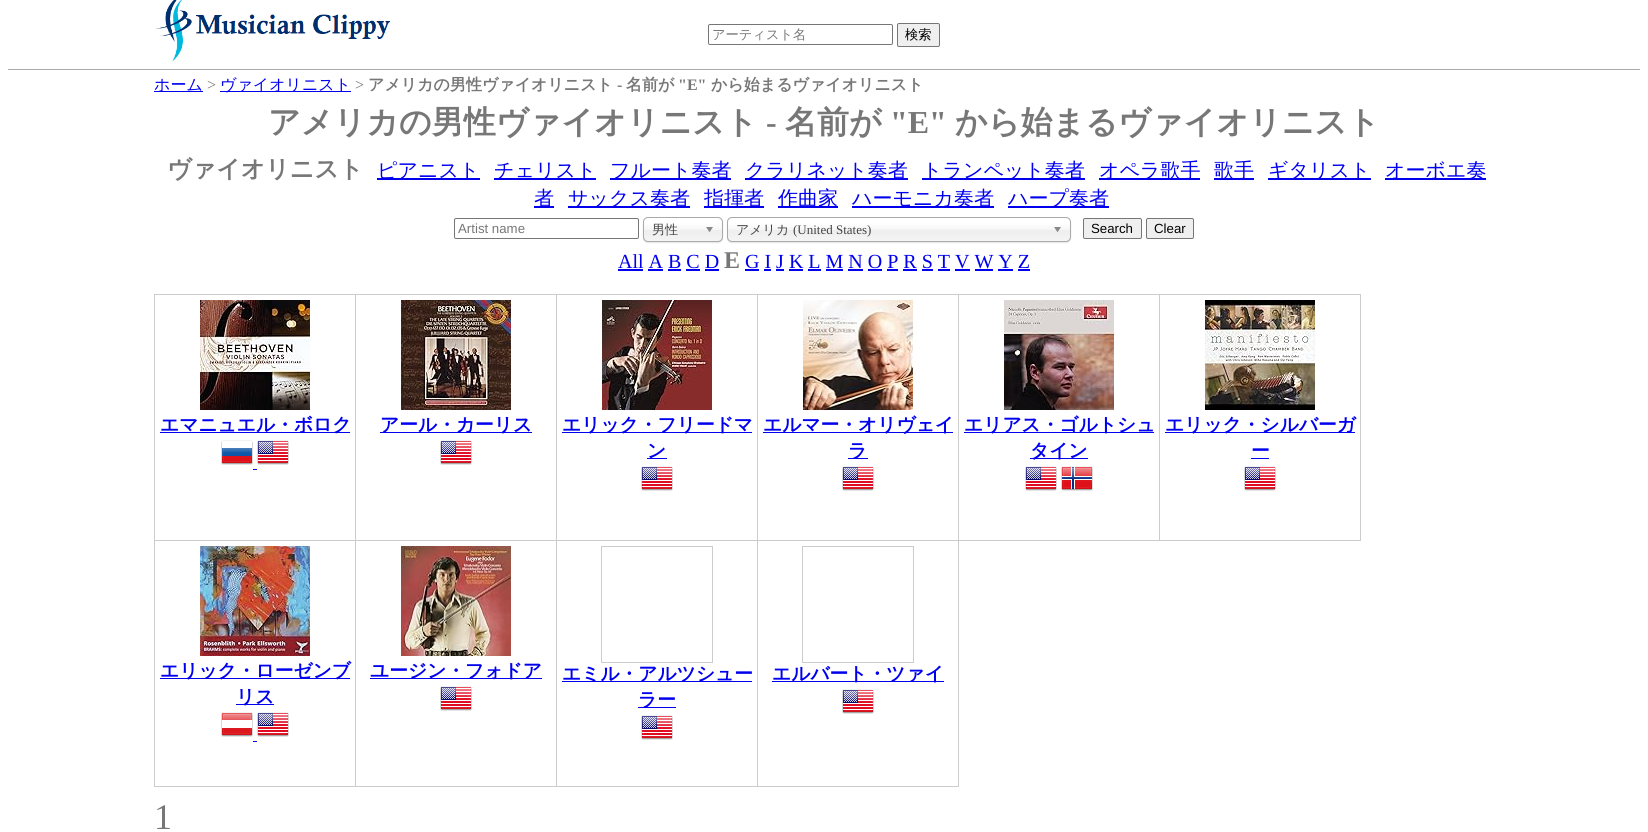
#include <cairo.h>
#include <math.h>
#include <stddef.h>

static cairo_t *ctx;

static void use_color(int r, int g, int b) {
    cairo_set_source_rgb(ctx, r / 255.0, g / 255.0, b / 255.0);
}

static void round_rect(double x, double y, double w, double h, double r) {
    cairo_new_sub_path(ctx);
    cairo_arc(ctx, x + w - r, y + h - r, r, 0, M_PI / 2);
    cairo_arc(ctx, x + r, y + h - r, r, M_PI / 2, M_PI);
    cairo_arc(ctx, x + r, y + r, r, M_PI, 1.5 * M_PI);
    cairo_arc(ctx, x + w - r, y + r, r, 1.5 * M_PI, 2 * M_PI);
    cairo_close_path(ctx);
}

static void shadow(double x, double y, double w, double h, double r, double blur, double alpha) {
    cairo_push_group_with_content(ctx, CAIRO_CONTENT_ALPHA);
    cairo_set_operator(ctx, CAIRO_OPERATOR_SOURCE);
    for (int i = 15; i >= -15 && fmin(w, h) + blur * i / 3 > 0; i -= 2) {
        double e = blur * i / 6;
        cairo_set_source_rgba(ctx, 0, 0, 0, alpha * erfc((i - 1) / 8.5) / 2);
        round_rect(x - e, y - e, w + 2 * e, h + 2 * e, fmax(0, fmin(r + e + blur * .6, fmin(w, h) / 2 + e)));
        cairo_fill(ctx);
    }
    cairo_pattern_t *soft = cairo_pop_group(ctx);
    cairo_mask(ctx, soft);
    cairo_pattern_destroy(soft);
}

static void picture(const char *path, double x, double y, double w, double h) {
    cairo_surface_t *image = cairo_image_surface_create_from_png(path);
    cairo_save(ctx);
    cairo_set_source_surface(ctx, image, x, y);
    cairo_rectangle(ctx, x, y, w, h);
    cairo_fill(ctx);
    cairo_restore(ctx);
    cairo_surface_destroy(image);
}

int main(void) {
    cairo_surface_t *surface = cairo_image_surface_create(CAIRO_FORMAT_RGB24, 1648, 832);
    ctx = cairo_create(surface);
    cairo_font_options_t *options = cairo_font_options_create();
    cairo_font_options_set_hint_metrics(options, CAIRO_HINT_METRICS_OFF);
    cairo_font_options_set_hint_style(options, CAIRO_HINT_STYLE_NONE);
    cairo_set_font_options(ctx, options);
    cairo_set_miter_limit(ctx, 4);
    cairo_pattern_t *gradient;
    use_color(255, 255, 255);
    cairo_paint(ctx);
    use_color(170, 170, 170);
    cairo_rectangle(ctx, 8, 69, 1632, 1);
    cairo_fill(ctx);
    picture("img1.png", 156, 0, 235, 62);
    round_rect(708.5, 24.5, 184, 20, 1.5);
    use_color(118, 118, 118);
    cairo_set_line_width(ctx, 1);
    cairo_stroke(ctx);
    cairo_select_font_face(ctx, "WenQuanYi Zen Hei Medium", CAIRO_FONT_SLANT_NORMAL, CAIRO_FONT_WEIGHT_NORMAL);
    cairo_set_font_size(ctx, 13.25);
    use_color(119, 119, 119);
    cairo_move_to(ctx, 712, 39);
    cairo_show_text(ctx, "アーティスト名");
    use_color(239, 239, 239);
    round_rect(897.5, 23.5, 42, 23, 1.5);
    cairo_fill_preserve(ctx);
    use_color(118, 118, 118);
    cairo_stroke(ctx);
    use_color(0, 0, 0);
    cairo_move_to(ctx, 905, 39);
    cairo_show_text(ctx, "検索");
    use_color(0, 0, 238);
    cairo_rectangle(ctx, 154, 91, 49, 1);
    cairo_fill(ctx);
    cairo_set_font_size(ctx, 16);
    cairo_move_to(ctx, 154, 90);
    cairo_show_text(ctx, "ホーム");
    cairo_select_font_face(ctx, "Liberation Serif", CAIRO_FONT_SLANT_NORMAL, CAIRO_FONT_WEIGHT_NORMAL);
    use_color(119, 119, 119);
    cairo_move_to(ctx, 207, 90);
    cairo_show_text(ctx, ">");
    use_color(0, 0, 238);
    cairo_rectangle(ctx, 220, 91, 131, 1);
    cairo_fill(ctx);
    cairo_select_font_face(ctx, "WenQuanYi Zen Hei Medium", CAIRO_FONT_SLANT_NORMAL, CAIRO_FONT_WEIGHT_NORMAL);
    cairo_move_to(ctx, 220, 90);
    cairo_show_text(ctx, "ヴァイオリニスト");
    cairo_select_font_face(ctx, "Liberation Serif", CAIRO_FONT_SLANT_NORMAL, CAIRO_FONT_WEIGHT_NORMAL);
    use_color(119, 119, 119);
    cairo_move_to(ctx, 355, 90);
    cairo_show_text(ctx, ">");
    cairo_select_font_face(ctx, "WenQuanYi Zen Hei", CAIRO_FONT_SLANT_NORMAL, CAIRO_FONT_WEIGHT_BOLD);
    cairo_move_to(ctx, 368, 90);
    cairo_show_text(ctx, "アメリカの男性ヴァイオリニスト");
    cairo_select_font_face(ctx, "Liberation Serif", CAIRO_FONT_SLANT_NORMAL, CAIRO_FONT_WEIGHT_BOLD);
    cairo_move_to(ctx, 617, 90);
    cairo_show_text(ctx, "-");
    cairo_select_font_face(ctx, "WenQuanYi Zen Hei", CAIRO_FONT_SLANT_NORMAL, CAIRO_FONT_WEIGHT_BOLD);
    cairo_move_to(ctx, 626, 90);
    cairo_show_text(ctx, "名前が");
    cairo_select_font_face(ctx, "Liberation Serif", CAIRO_FONT_SLANT_NORMAL, CAIRO_FONT_WEIGHT_BOLD);
    cairo_move_to(ctx, 678, 90);
    cairo_show_text(ctx, "\"E\"");
    cairo_select_font_face(ctx, "WenQuanYi Zen Hei", CAIRO_FONT_SLANT_NORMAL, CAIRO_FONT_WEIGHT_BOLD);
    cairo_move_to(ctx, 711, 90);
    cairo_show_text(ctx, "から始まるヴァイオリニスト");
    cairo_set_font_size(ctx, 32);
    cairo_move_to(ctx, 268, 133);
    cairo_show_text(ctx, "アメリカの男性ヴァイオリニスト");
    cairo_select_font_face(ctx, "Liberation Serif", CAIRO_FONT_SLANT_NORMAL, CAIRO_FONT_WEIGHT_BOLD);
    cairo_move_to(ctx, 766, 133);
    cairo_show_text(ctx, "-");
    cairo_select_font_face(ctx, "WenQuanYi Zen Hei", CAIRO_FONT_SLANT_NORMAL, CAIRO_FONT_WEIGHT_BOLD);
    cairo_move_to(ctx, 785, 133);
    cairo_show_text(ctx, "名前が");
    cairo_select_font_face(ctx, "Liberation Serif", CAIRO_FONT_SLANT_NORMAL, CAIRO_FONT_WEIGHT_BOLD);
    cairo_move_to(ctx, 890, 133);
    cairo_show_text(ctx, "\"E\"");
    cairo_select_font_face(ctx, "WenQuanYi Zen Hei", CAIRO_FONT_SLANT_NORMAL, CAIRO_FONT_WEIGHT_BOLD);
    cairo_move_to(ctx, 955, 133);
    cairo_show_text(ctx, "から始まるヴァイオリニスト");
    cairo_set_font_size(ctx, 24);
    cairo_move_to(ctx, 167, 177);
    cairo_show_text(ctx, "ヴァイオリニスト");
    use_color(0, 0, 238);
    cairo_rectangle(ctx, 377, 178, 103, 2);
    cairo_fill(ctx);
    cairo_select_font_face(ctx, "WenQuanYi Zen Hei Medium", CAIRO_FONT_SLANT_NORMAL, CAIRO_FONT_WEIGHT_NORMAL);
    cairo_set_font_size(ctx, 20);
    cairo_move_to(ctx, 377, 177);
    cairo_show_text(ctx, "ピアニスト");
    cairo_rectangle(ctx, 494, 178, 102, 2);
    cairo_fill(ctx);
    cairo_move_to(ctx, 494, 177);
    cairo_show_text(ctx, "チェリスト");
    cairo_rectangle(ctx, 610, 178, 121, 2);
    cairo_fill(ctx);
    cairo_move_to(ctx, 610, 177);
    cairo_show_text(ctx, "フルート奏者");
    cairo_rectangle(ctx, 745, 178, 163, 2);
    cairo_fill(ctx);
    cairo_move_to(ctx, 745, 177);
    cairo_show_text(ctx, "クラリネット奏者");
    cairo_rectangle(ctx, 922, 178, 163, 2);
    cairo_fill(ctx);
    cairo_move_to(ctx, 922, 177);
    cairo_show_text(ctx, "トランペット奏者");
    cairo_rectangle(ctx, 1099, 178, 101, 2);
    cairo_fill(ctx);
    cairo_move_to(ctx, 1099, 177);
    cairo_show_text(ctx, "オペラ歌手");
    cairo_rectangle(ctx, 1214, 178, 40, 2);
    cairo_fill(ctx);
    cairo_move_to(ctx, 1214, 177);
    cairo_show_text(ctx, "歌手");
    cairo_rectangle(ctx, 1268, 178, 103, 2);
    cairo_fill(ctx);
    cairo_move_to(ctx, 1268, 177);
    cairo_show_text(ctx, "ギタリスト");
    cairo_rectangle(ctx, 1385, 178, 101, 2);
    cairo_fill(ctx);
    cairo_move_to(ctx, 1385, 177);
    cairo_show_text(ctx, "オーボエ奏");
    cairo_rectangle(ctx, 534, 206, 20, 2);
    cairo_fill(ctx);
    cairo_move_to(ctx, 534, 205);
    cairo_show_text(ctx, "者");
    cairo_rectangle(ctx, 568, 206, 122, 2);
    cairo_fill(ctx);
    cairo_move_to(ctx, 568, 205);
    cairo_show_text(ctx, "サックス奏者");
    cairo_rectangle(ctx, 704, 206, 60, 2);
    cairo_fill(ctx);
    cairo_move_to(ctx, 704, 205);
    cairo_show_text(ctx, "指揮者");
    cairo_rectangle(ctx, 778, 206, 60, 2);
    cairo_fill(ctx);
    cairo_move_to(ctx, 778, 205);
    cairo_show_text(ctx, "作曲家");
    cairo_rectangle(ctx, 852, 206, 142, 2);
    cairo_fill(ctx);
    cairo_move_to(ctx, 852, 205);
    cairo_show_text(ctx, "ハーモニカ奏者");
    cairo_rectangle(ctx, 1008, 206, 101, 2);
    cairo_fill(ctx);
    cairo_move_to(ctx, 1008, 205);
    cairo_show_text(ctx, "ハープ奏者");
    round_rect(454.5, 218.5, 184, 20, 1.5);
    use_color(118, 118, 118);
    cairo_stroke(ctx);
    cairo_select_font_face(ctx, "Liberation Sans", CAIRO_FONT_SLANT_NORMAL, CAIRO_FONT_WEIGHT_NORMAL);
    cairo_set_font_size(ctx, 13.25);
    use_color(119, 119, 119);
    cairo_move_to(ctx, 458, 233);
    cairo_show_text(ctx, "Artist name");
    use_color(0, 0, 0);
    shadow(643, 218, 80, 25, 5, 0.5, 0.1);
    gradient = cairo_pattern_create_linear(683, 218, 683, 241);
    cairo_pattern_add_color_stop_rgba(gradient, 0.2, 1, 1, 1, 1);
    cairo_pattern_add_color_stop_rgba(gradient, 0.5, 0.965, 0.965, 0.965, 1);
    cairo_pattern_add_color_stop_rgba(gradient, 0.52, 0.933, 0.933, 0.933, 1);
    cairo_pattern_add_color_stop_rgba(gradient, 1, 0.957, 0.957, 0.957, 1);
    cairo_set_source(ctx, gradient);
    cairo_pattern_destroy(gradient);
    round_rect(644, 218, 78, 23, 4);
    cairo_fill(ctx);
    round_rect(643.5, 217.5, 79, 24, 4.5);
    use_color(170, 170, 170);
    cairo_stroke(ctx);
    cairo_select_font_face(ctx, "WenQuanYi Zen Hei Medium", CAIRO_FONT_SLANT_NORMAL, CAIRO_FONT_WEIGHT_NORMAL);
    cairo_set_font_size(ctx, 13);
    use_color(68, 68, 68);
    cairo_move_to(ctx, 652, 234);
    cairo_show_text(ctx, "男性");
    picture("img2.png", 706, 227, 7, 6);
    use_color(0, 0, 0);
    shadow(727, 218, 344, 25, 5, 0.5, 0.1);
    gradient = cairo_pattern_create_linear(899, 218, 899, 241);
    cairo_pattern_add_color_stop_rgba(gradient, 0.2, 1, 1, 1, 1);
    cairo_pattern_add_color_stop_rgba(gradient, 0.5, 0.965, 0.965, 0.965, 1);
    cairo_pattern_add_color_stop_rgba(gradient, 0.52, 0.933, 0.933, 0.933, 1);
    cairo_pattern_add_color_stop_rgba(gradient, 1, 0.957, 0.957, 0.957, 1);
    cairo_set_source(ctx, gradient);
    cairo_pattern_destroy(gradient);
    round_rect(728, 218, 342, 23, 4);
    cairo_fill(ctx);
    round_rect(727.5, 217.5, 343, 24, 4.5);
    use_color(170, 170, 170);
    cairo_stroke(ctx);
    use_color(68, 68, 68);
    cairo_move_to(ctx, 736, 234);
    cairo_show_text(ctx, "アメリカ");
    cairo_select_font_face(ctx, "Liberation Serif", CAIRO_FONT_SLANT_NORMAL, CAIRO_FONT_WEIGHT_NORMAL);
    cairo_move_to(ctx, 793, 234);
    cairo_show_text(ctx, "(United States)");
    picture("img2.png", 1054, 227, 7, 6);
    use_color(239, 239, 239);
    round_rect(1083.5, 218.5, 58, 20, 1.5);
    cairo_fill_preserve(ctx);
    use_color(118, 118, 118);
    cairo_stroke(ctx);
    cairo_select_font_face(ctx, "Liberation Sans", CAIRO_FONT_SLANT_NORMAL, CAIRO_FONT_WEIGHT_NORMAL);
    cairo_set_font_size(ctx, 13.25);
    use_color(0, 0, 0);
    cairo_move_to(ctx, 1091, 233);
    cairo_show_text(ctx, "Search");
    use_color(239, 239, 239);
    round_rect(1146.5, 218.5, 47, 20, 1.5);
    cairo_fill_preserve(ctx);
    use_color(118, 118, 118);
    cairo_stroke(ctx);
    use_color(0, 0, 0);
    cairo_move_to(ctx, 1154, 233);
    cairo_show_text(ctx, "Clear");
    cairo_select_font_face(ctx, "Liberation Serif", CAIRO_FONT_SLANT_NORMAL, CAIRO_FONT_WEIGHT_NORMAL);
    cairo_set_font_size(ctx, 20);
    use_color(0, 0, 238);
    cairo_move_to(ctx, 618, 268);
    cairo_show_text(ctx, "All A B C D");
    cairo_rectangle(ctx, 618, 269, 25, 2);
    cairo_fill(ctx);
    cairo_select_font_face(ctx, "Liberation Serif", CAIRO_FONT_SLANT_NORMAL, CAIRO_FONT_WEIGHT_BOLD);
    cairo_set_font_size(ctx, 24);
    use_color(119, 119, 119);
    cairo_move_to(ctx, 724, 268);
    cairo_show_text(ctx, "E");
    cairo_select_font_face(ctx, "Liberation Serif", CAIRO_FONT_SLANT_NORMAL, CAIRO_FONT_WEIGHT_NORMAL);
    cairo_set_font_size(ctx, 20);
    use_color(0, 0, 238);
    cairo_move_to(ctx, 745, 268);
    cairo_show_text(ctx, "G I J K L M N O P R S T V W Y Z");
    cairo_rectangle(ctx, 745, 269, 14, 2);
    cairo_fill(ctx);
    cairo_rectangle(ctx, 648, 269, 15, 2);
    cairo_fill(ctx);
    cairo_rectangle(ctx, 668, 269, 13, 2);
    cairo_fill(ctx);
    cairo_rectangle(ctx, 686, 269, 14, 2);
    cairo_fill(ctx);
    cairo_rectangle(ctx, 705, 269, 14, 2);
    cairo_fill(ctx);
    cairo_rectangle(ctx, 764, 269, 7, 2);
    cairo_fill(ctx);
    cairo_rectangle(ctx, 776, 269, 8, 2);
    cairo_fill(ctx);
    cairo_rectangle(ctx, 789, 269, 14, 2);
    cairo_fill(ctx);
    cairo_rectangle(ctx, 808, 269, 13, 2);
    cairo_fill(ctx);
    cairo_rectangle(ctx, 826, 269, 17, 2);
    cairo_fill(ctx);
    cairo_rectangle(ctx, 848, 269, 15, 2);
    cairo_fill(ctx);
    cairo_rectangle(ctx, 868, 269, 14, 2);
    cairo_fill(ctx);
    cairo_rectangle(ctx, 887, 269, 11, 2);
    cairo_fill(ctx);
    cairo_rectangle(ctx, 903, 269, 14, 2);
    cairo_fill(ctx);
    cairo_rectangle(ctx, 922, 269, 11, 2);
    cairo_fill(ctx);
    cairo_rectangle(ctx, 938, 269, 12, 2);
    cairo_fill(ctx);
    cairo_rectangle(ctx, 955, 269, 15, 2);
    cairo_fill(ctx);
    cairo_rectangle(ctx, 975, 269, 18, 2);
    cairo_fill(ctx);
    cairo_rectangle(ctx, 998, 269, 15, 2);
    cairo_fill(ctx);
    cairo_rectangle(ctx, 1018, 269, 12, 2);
    cairo_fill(ctx);
    cairo_rectangle(ctx, 154.5, 294.5, 201, 246);
    use_color(204, 204, 204);
    cairo_stroke(ctx);
    picture("img3.png", 200, 300, 110, 110);
    use_color(0, 0, 238);
    cairo_rectangle(ctx, 160, 432, 190, 1);
    cairo_fill(ctx);
    cairo_select_font_face(ctx, "WenQuanYi Zen Hei", CAIRO_FONT_SLANT_NORMAL, CAIRO_FONT_WEIGHT_BOLD);
    cairo_set_font_size(ctx, 18.75);
    cairo_move_to(ctx, 160, 431);
    cairo_show_text(ctx, "エマニュエル・ボロク");
    picture("img4.png", 221, 440, 32, 25);
    picture("img5.png", 257, 440, 32, 25);
    cairo_rectangle(ctx, 253, 469, 4, 1);
    cairo_fill(ctx);
    cairo_rectangle(ctx, 355.5, 294.5, 201, 246);
    use_color(204, 204, 204);
    cairo_stroke(ctx);
    picture("img6.png", 401, 300, 110, 110);
    use_color(0, 0, 238);
    cairo_rectangle(ctx, 380, 432, 152, 1);
    cairo_fill(ctx);
    cairo_move_to(ctx, 380, 431);
    cairo_show_text(ctx, "アール・カーリス");
    picture("img5.png", 440, 440, 32, 25);
    cairo_rectangle(ctx, 556.5, 294.5, 201, 246);
    use_color(204, 204, 204);
    cairo_stroke(ctx);
    picture("img7.png", 602, 300, 110, 110);
    use_color(0, 0, 238);
    cairo_rectangle(ctx, 562, 432, 190, 1);
    cairo_fill(ctx);
    cairo_move_to(ctx, 562, 431);
    cairo_show_text(ctx, "エリック・フリードマ");
    cairo_rectangle(ctx, 647, 458, 20, 1);
    cairo_fill(ctx);
    cairo_move_to(ctx, 647, 457);
    cairo_show_text(ctx, "ン");
    picture("img5.png", 641, 466, 32, 25);
    cairo_rectangle(ctx, 757.5, 294.5, 201, 246);
    use_color(204, 204, 204);
    cairo_stroke(ctx);
    picture("img8.png", 803, 300, 110, 110);
    use_color(0, 0, 238);
    cairo_rectangle(ctx, 763, 432, 190, 1);
    cairo_fill(ctx);
    cairo_move_to(ctx, 763, 431);
    cairo_show_text(ctx, "エルマー・オリヴェイ");
    cairo_rectangle(ctx, 848, 458, 20, 1);
    cairo_fill(ctx);
    cairo_move_to(ctx, 848, 457);
    cairo_show_text(ctx, "ラ");
    picture("img5.png", 842, 466, 32, 25);
    cairo_rectangle(ctx, 958.5, 294.5, 201, 246);
    use_color(204, 204, 204);
    cairo_stroke(ctx);
    picture("img9.png", 1004, 300, 110, 110);
    use_color(0, 0, 238);
    cairo_rectangle(ctx, 964, 432, 190, 1);
    cairo_fill(ctx);
    cairo_move_to(ctx, 964, 431);
    cairo_show_text(ctx, "エリアス・ゴルトシュ");
    cairo_rectangle(ctx, 1030, 458, 58, 1);
    cairo_fill(ctx);
    cairo_move_to(ctx, 1030, 457);
    cairo_show_text(ctx, "タイン");
    picture("img5.png", 1025, 466, 32, 25);
    picture("img10.png", 1061, 466, 32, 25);
    cairo_rectangle(ctx, 1159.5, 294.5, 201, 246);
    use_color(204, 204, 204);
    cairo_stroke(ctx);
    picture("img11.png", 1205, 300, 110, 110);
    use_color(0, 0, 238);
    cairo_rectangle(ctx, 1165, 432, 190, 1);
    cairo_fill(ctx);
    cairo_move_to(ctx, 1165, 431);
    cairo_show_text(ctx, "エリック・シルバーガ");
    cairo_move_to(ctx, 1251, 457);
    cairo_show_text(ctx, "ー");
    cairo_rectangle(ctx, 1251, 458, 18, 1);
    cairo_fill(ctx);
    picture("img5.png", 1244, 466, 32, 25);
    cairo_rectangle(ctx, 154.5, 540.5, 201, 246);
    use_color(204, 204, 204);
    cairo_stroke(ctx);
    picture("img12.png", 200, 546, 110, 110);
    use_color(0, 0, 238);
    cairo_rectangle(ctx, 160, 678, 190, 1);
    cairo_fill(ctx);
    cairo_move_to(ctx, 160, 677);
    cairo_show_text(ctx, "エリック・ローゼンブ");
    cairo_rectangle(ctx, 236, 704, 38, 1);
    cairo_fill(ctx);
    cairo_move_to(ctx, 236, 703);
    cairo_show_text(ctx, "リス");
    picture("img13.png", 221, 712, 32, 25);
    picture("img5.png", 257, 712, 32, 25);
    cairo_rectangle(ctx, 253, 741, 4, 1);
    cairo_fill(ctx);
    cairo_rectangle(ctx, 355.5, 540.5, 201, 246);
    use_color(204, 204, 204);
    cairo_stroke(ctx);
    picture("img14.png", 401, 546, 110, 110);
    use_color(0, 0, 238);
    cairo_rectangle(ctx, 370, 678, 172, 1);
    cairo_fill(ctx);
    cairo_move_to(ctx, 370, 677);
    cairo_show_text(ctx, "ユージン・フォドア");
    picture("img5.png", 440, 686, 32, 25);
    cairo_rectangle(ctx, 556.5, 540.5, 201, 246);
    use_color(204, 204, 204);
    cairo_stroke(ctx);
    cairo_rectangle(ctx, 601.5, 546.5, 111, 116);
    cairo_stroke(ctx);
    use_color(0, 0, 238);
    cairo_rectangle(ctx, 562, 681, 190, 1);
    cairo_fill(ctx);
    cairo_move_to(ctx, 562, 680);
    cairo_show_text(ctx, "エミル・アルツシュー");
    cairo_rectangle(ctx, 638, 707, 38, 1);
    cairo_fill(ctx);
    cairo_move_to(ctx, 638, 706);
    cairo_show_text(ctx, "ラー");
    picture("img5.png", 641, 715, 32, 25);
    cairo_rectangle(ctx, 757.5, 540.5, 201, 246);
    use_color(204, 204, 204);
    cairo_stroke(ctx);
    cairo_rectangle(ctx, 802.5, 546.5, 111, 116);
    cairo_stroke(ctx);
    use_color(0, 0, 238);
    cairo_rectangle(ctx, 772, 681, 172, 1);
    cairo_fill(ctx);
    cairo_move_to(ctx, 772, 680);
    cairo_show_text(ctx, "エルバート・ツァイ");
    picture("img5.png", 842, 689, 32, 25);
    cairo_select_font_face(ctx, "Liberation Serif", CAIRO_FONT_SLANT_NORMAL, CAIRO_FONT_WEIGHT_NORMAL);
    cairo_set_font_size(ctx, 36);
    use_color(119, 119, 119);
    cairo_move_to(ctx, 154, 829);
    cairo_show_text(ctx, "1");
    cairo_surface_write_to_png(surface, "result.png");
    cairo_font_options_destroy(options);
    cairo_destroy(ctx);
    cairo_surface_destroy(surface);
    return 0;
}
